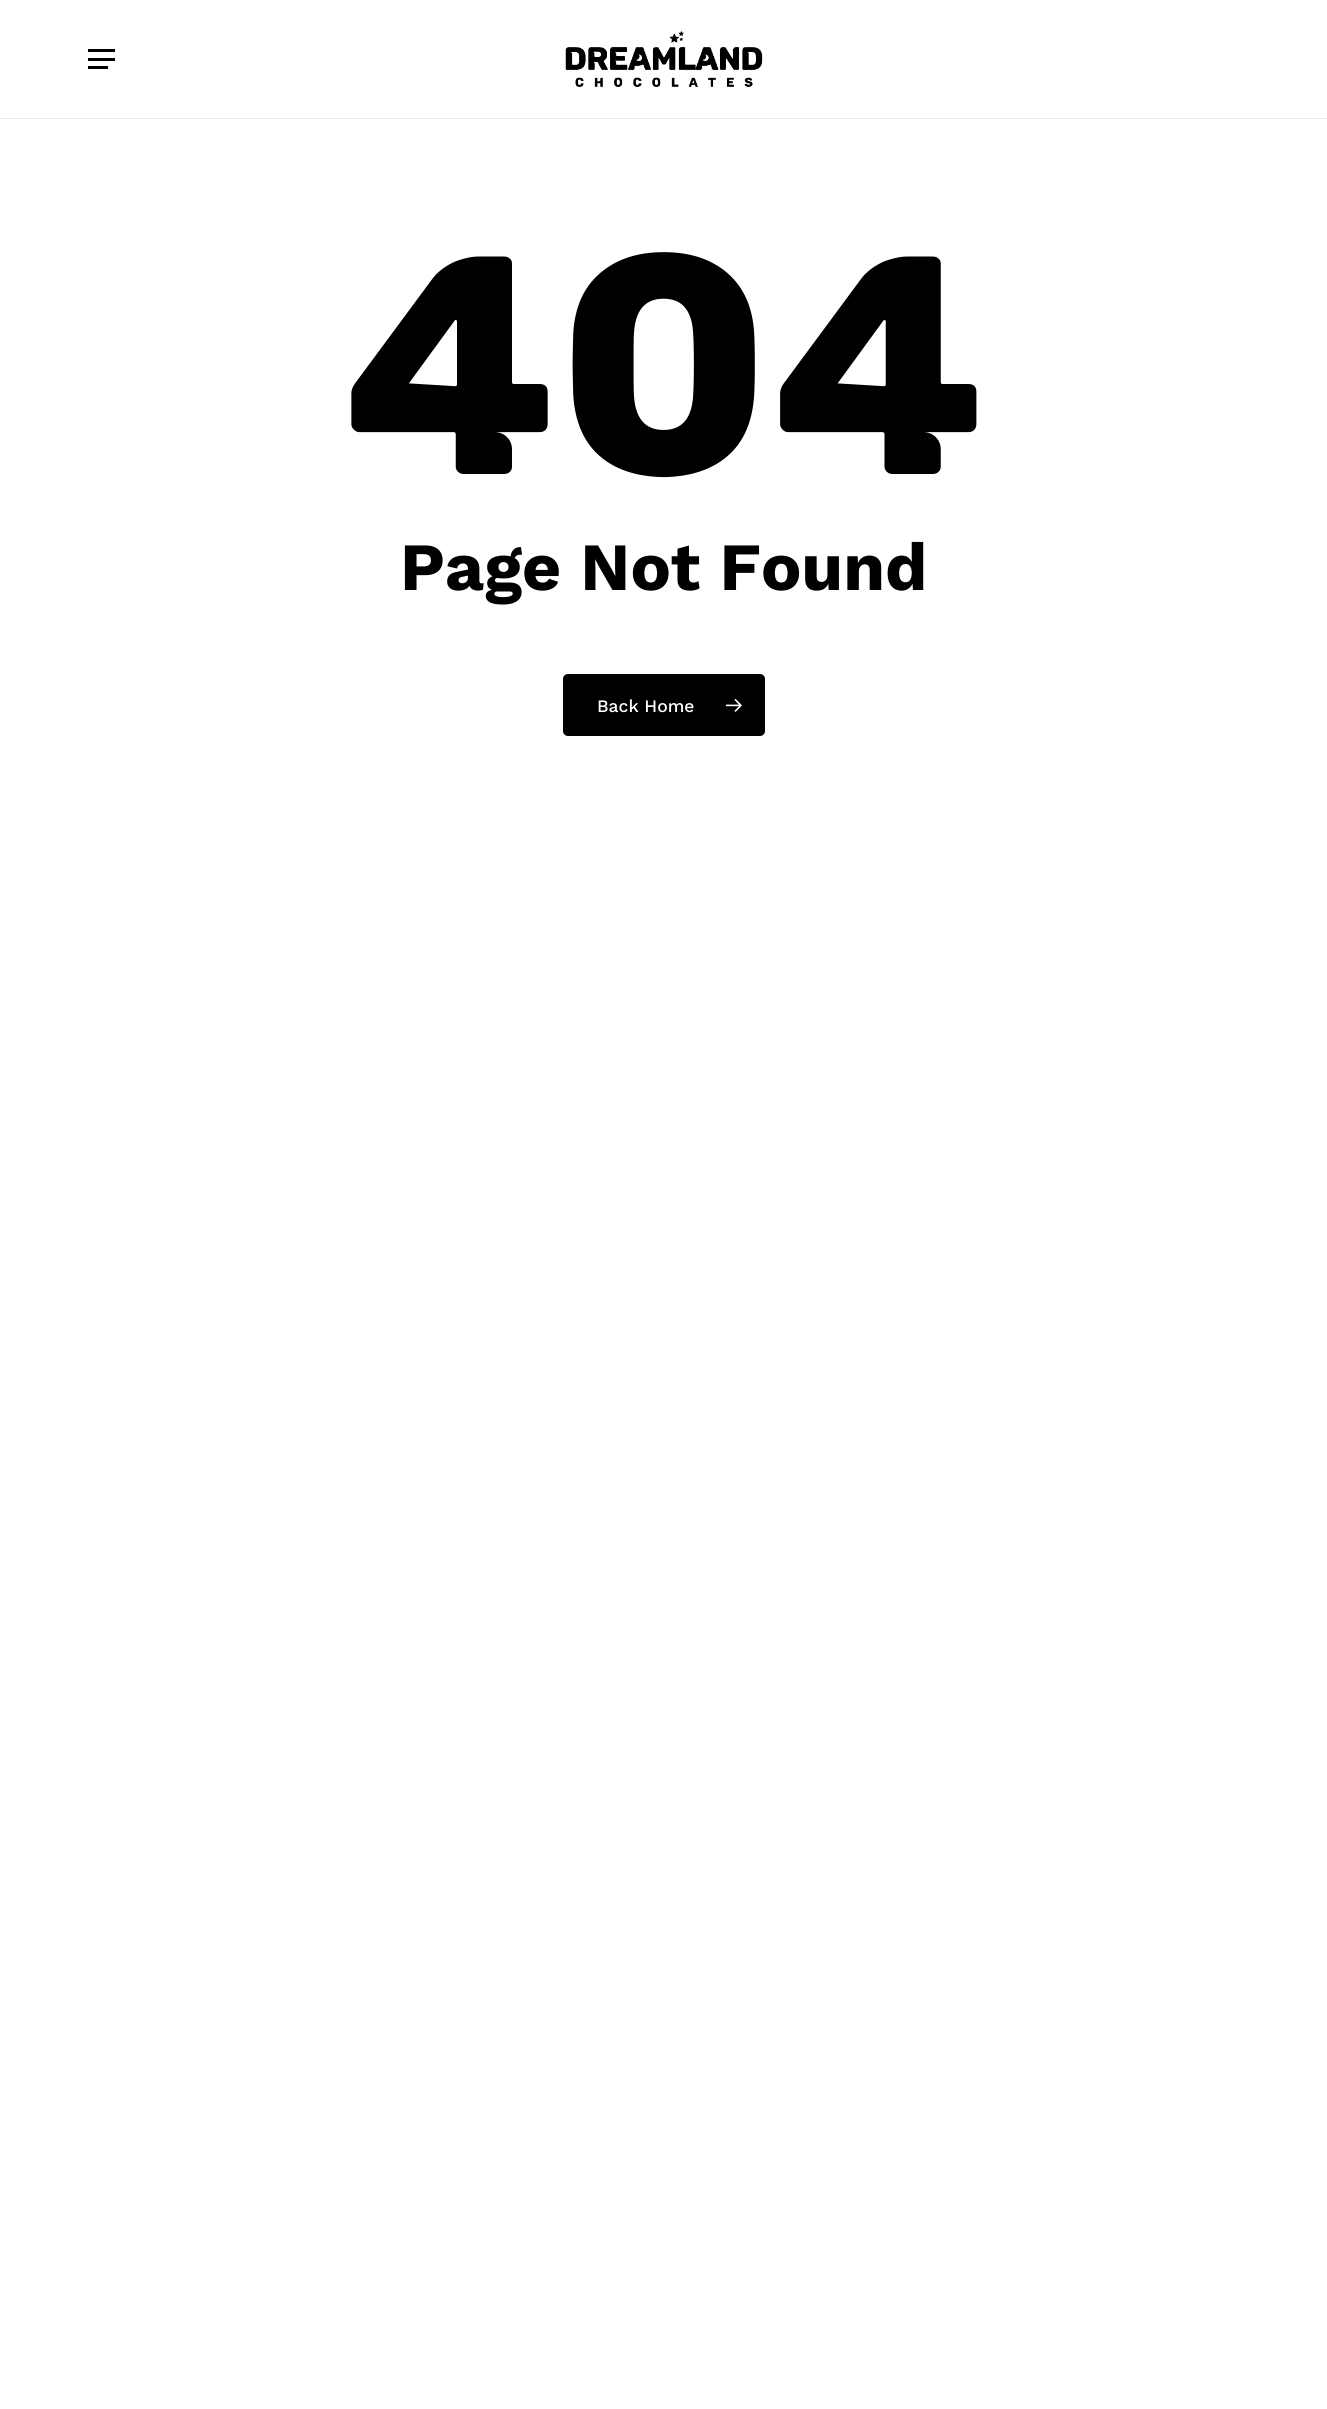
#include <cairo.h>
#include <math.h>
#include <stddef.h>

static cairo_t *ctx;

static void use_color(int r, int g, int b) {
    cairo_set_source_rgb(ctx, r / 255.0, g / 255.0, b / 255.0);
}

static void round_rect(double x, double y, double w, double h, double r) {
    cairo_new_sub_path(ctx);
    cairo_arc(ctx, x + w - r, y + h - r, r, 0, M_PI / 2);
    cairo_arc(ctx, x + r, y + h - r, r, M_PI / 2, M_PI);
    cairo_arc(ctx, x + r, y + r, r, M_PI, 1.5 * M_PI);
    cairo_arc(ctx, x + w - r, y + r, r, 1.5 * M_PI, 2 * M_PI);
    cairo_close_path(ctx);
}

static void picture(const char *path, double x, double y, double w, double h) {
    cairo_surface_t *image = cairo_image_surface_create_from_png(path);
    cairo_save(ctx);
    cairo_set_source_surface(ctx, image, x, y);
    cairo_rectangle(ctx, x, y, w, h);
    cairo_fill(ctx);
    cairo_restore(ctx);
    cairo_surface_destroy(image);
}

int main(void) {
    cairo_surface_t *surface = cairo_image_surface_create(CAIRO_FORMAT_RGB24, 1327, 2409);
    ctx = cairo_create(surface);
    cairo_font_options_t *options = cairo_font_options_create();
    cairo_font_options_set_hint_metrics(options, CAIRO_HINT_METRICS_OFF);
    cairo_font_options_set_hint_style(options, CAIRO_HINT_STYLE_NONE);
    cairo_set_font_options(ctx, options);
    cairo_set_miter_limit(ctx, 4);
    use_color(255, 255, 255);
    cairo_paint(ctx);
    use_color(235, 235, 235);
    cairo_new_path(ctx);
    cairo_move_to(ctx, 0, 118);
    cairo_line_to(ctx, 0, 119);
    cairo_line_to(ctx, 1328, 119);
    cairo_line_to(ctx, 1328, 1);
    cairo_line_to(ctx, 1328, 118);
    cairo_close_path(ctx);
    cairo_fill(ctx);
    use_color(0, 0, 0);
    cairo_rectangle(ctx, 88, 49, 27, 3);
    cairo_fill(ctx);
    cairo_rectangle(ctx, 88, 66, 20, 3);
    cairo_fill(ctx);
    cairo_rectangle(ctx, 88, 58, 27, 3);
    cairo_fill(ctx);
    picture("img1.png", 565, 31, 198, 56);
    cairo_select_font_face(ctx, "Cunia", CAIRO_FONT_SLANT_NORMAL, CAIRO_FONT_WEIGHT_BOLD);
    cairo_set_font_size(ctx, 312.5);
    cairo_move_to(ctx, 342, 474);
    cairo_show_text(ctx, "404");
    cairo_select_font_face(ctx, "Work Sans", CAIRO_FONT_SLANT_NORMAL, CAIRO_FONT_WEIGHT_BOLD);
    cairo_set_font_size(ctx, 67.5);
    cairo_move_to(ctx, 400, 590);
    cairo_show_text(ctx, "Page Not Found");
    round_rect(563, 674, 202, 62, 5);
    cairo_fill(ctx);
    cairo_select_font_face(ctx, "Work Sans Medium", CAIRO_FONT_SLANT_NORMAL, CAIRO_FONT_WEIGHT_NORMAL);
    cairo_set_font_size(ctx, 17.5);
    use_color(255, 255, 255);
    cairo_move_to(ctx, 597, 712);
    cairo_show_text(ctx, "Back Home");
    picture("img2.png", 725, 699, 17, 13);
    cairo_surface_write_to_png(surface, "result.png");
    cairo_font_options_destroy(options);
    cairo_destroy(ctx);
    cairo_surface_destroy(surface);
    return 0;
}
